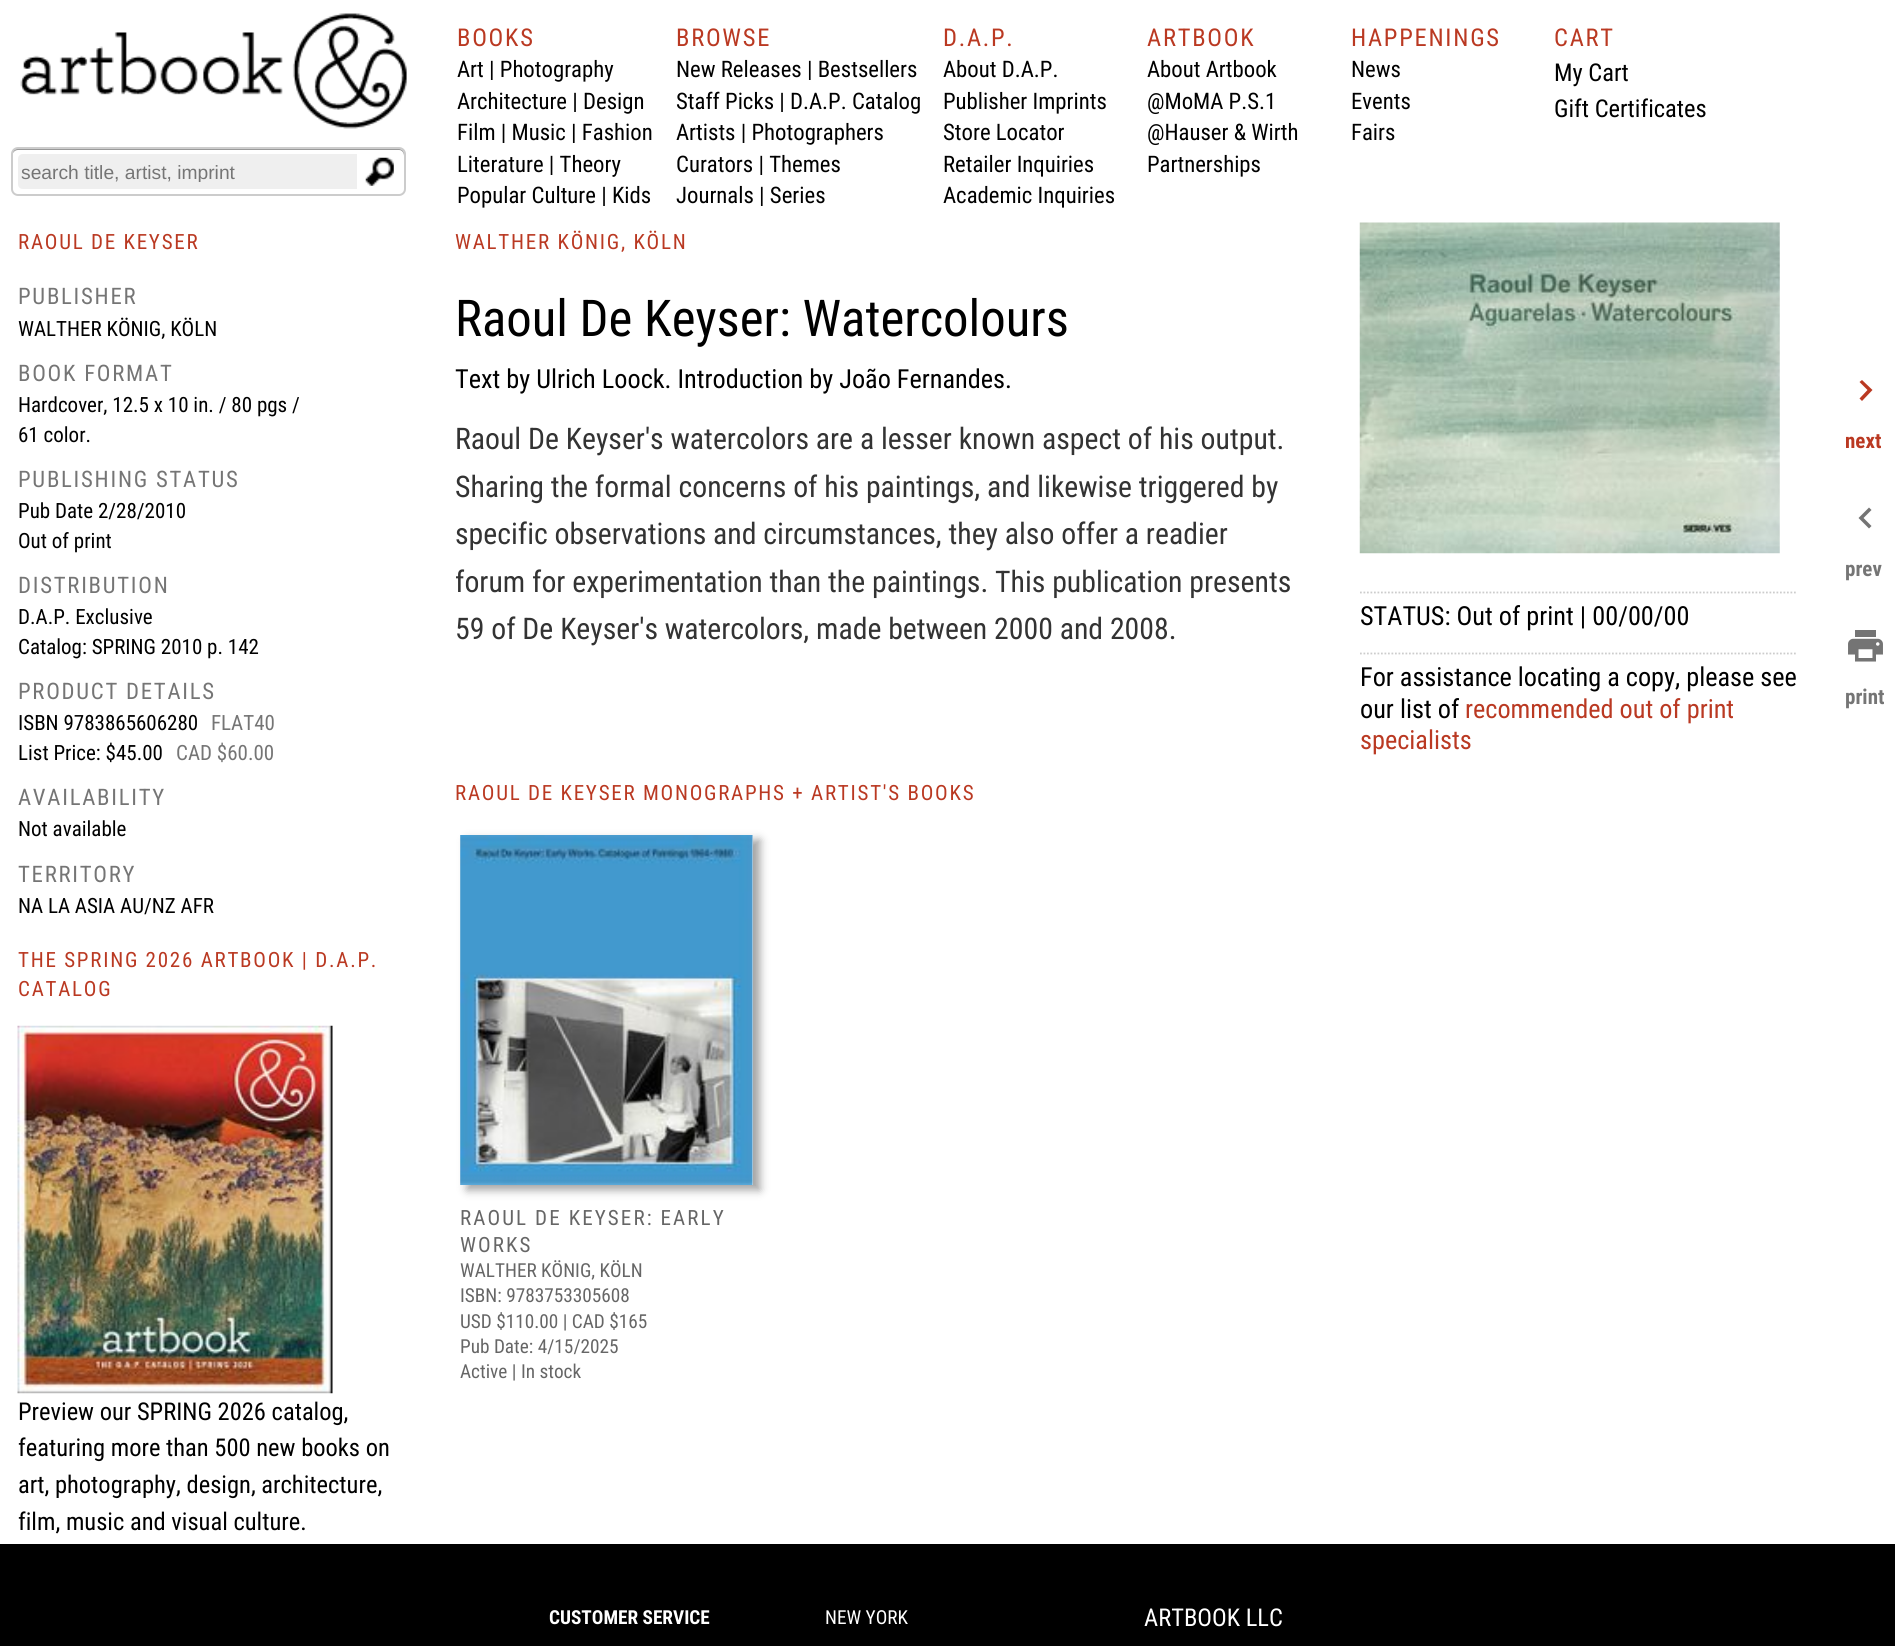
#include <cairo.h>
#include <math.h>
#include <stddef.h>

static cairo_t *ctx;

static void use_color(int r, int g, int b) {
    cairo_set_source_rgb(ctx, r / 255.0, g / 255.0, b / 255.0);
}

static void spaced_text(double x, double y, const char *s, double letter, double word) {
    cairo_move_to(ctx, x, y);
    while (*s) {
        char ch[5] = {0};
        int n = 0;
        do ch[n++] = *s++; while ((*s & 0xC0) == 0x80);
        cairo_show_text(ctx, ch);
        cairo_rel_move_to(ctx, letter + word * (*ch == ' '), 0);
    }
}

static void round_rect(double x, double y, double w, double h, double r) {
    cairo_new_sub_path(ctx);
    cairo_arc(ctx, x + w - r, y + h - r, r, 0, M_PI / 2);
    cairo_arc(ctx, x + r, y + h - r, r, M_PI / 2, M_PI);
    cairo_arc(ctx, x + r, y + r, r, M_PI, 1.5 * M_PI);
    cairo_arc(ctx, x + w - r, y + r, r, 1.5 * M_PI, 2 * M_PI);
    cairo_close_path(ctx);
}

static void shadow(double x, double y, double w, double h, double r, double blur, double alpha) {
    cairo_push_group_with_content(ctx, CAIRO_CONTENT_ALPHA);
    cairo_set_operator(ctx, CAIRO_OPERATOR_SOURCE);
    for (int i = 15; i >= -15 && fmin(w, h) + blur * i / 3 > 0; i -= 2) {
        double e = blur * i / 6;
        cairo_set_source_rgba(ctx, 0, 0, 0, alpha * erfc((i - 1) / 8.5) / 2);
        round_rect(x - e, y - e, w + 2 * e, h + 2 * e, fmax(0, fmin(r + e + blur * .6, fmin(w, h) / 2 + e)));
        cairo_fill(ctx);
    }
    cairo_pattern_t *soft = cairo_pop_group(ctx);
    cairo_mask(ctx, soft);
    cairo_pattern_destroy(soft);
}

static void picture(const char *path, double x, double y, double w, double h) {
    cairo_surface_t *image = cairo_image_surface_create_from_png(path);
    cairo_save(ctx);
    cairo_set_source_surface(ctx, image, x, y);
    cairo_rectangle(ctx, x, y, w, h);
    cairo_fill(ctx);
    cairo_restore(ctx);
    cairo_surface_destroy(image);
}

int main(void) {
    cairo_surface_t *surface = cairo_image_surface_create(CAIRO_FORMAT_RGB24, 1895, 1646);
    ctx = cairo_create(surface);
    cairo_font_options_t *options = cairo_font_options_create();
    cairo_font_options_set_hint_metrics(options, CAIRO_HINT_METRICS_OFF);
    cairo_font_options_set_hint_style(options, CAIRO_HINT_STYLE_NONE);
    cairo_set_font_options(ctx, options);
    cairo_set_miter_limit(ctx, 4);
    use_color(255, 255, 255);
    cairo_paint(ctx);
    picture("img1.png", 20, 13, 387, 116);
    use_color(153, 153, 153);
    cairo_new_path(ctx);
    cairo_move_to(ctx, 18, 150);
    cairo_line_to(ctx, 399, 150);
    cairo_curve_to(ctx, 402, 150, 404, 153, 404, 156);
    cairo_line_to(ctx, 404, 154);
    cairo_curve_to(ctx, 404, 151, 402, 149, 399, 149);
    cairo_line_to(ctx, 17, 149);
    cairo_curve_to(ctx, 14, 149, 12, 151, 12, 154);
    cairo_line_to(ctx, 12, 156);
    cairo_curve_to(ctx, 12, 153, 15, 150, 18, 150);
    cairo_close_path(ctx);
    cairo_fill(ctx);
    round_rect(12, 148, 393, 47, 6);
    use_color(204, 204, 204);
    cairo_stroke(ctx);
    use_color(239, 239, 239);
    cairo_new_path(ctx);
    cairo_move_to(ctx, 23, 154);
    cairo_line_to(ctx, 357, 154);
    cairo_line_to(ctx, 357, 189);
    cairo_line_to(ctx, 23, 189);
    cairo_curve_to(ctx, 20, 189, 18, 187, 18, 184);
    cairo_line_to(ctx, 18, 159);
    cairo_curve_to(ctx, 18, 156, 20, 154, 23, 154);
    cairo_close_path(ctx);
    cairo_fill(ctx);
    cairo_save(ctx);
    cairo_rectangle(ctx, 21, 161, 333, 21);
    cairo_clip(ctx);
    cairo_select_font_face(ctx, "Liberation Sans", CAIRO_FONT_SLANT_NORMAL, CAIRO_FONT_WEIGHT_NORMAL);
    cairo_set_font_size(ctx, 19.25);
    use_color(117, 117, 117);
    cairo_move_to(ctx, 21, 179);
    cairo_show_text(ctx, "search title, artist, imprint");
    cairo_restore(ctx);
    picture("img2.png", 365, 157, 29, 29);
    cairo_select_font_face(ctx, "Roboto Condensed", CAIRO_FONT_SLANT_NORMAL, CAIRO_FONT_WEIGHT_NORMAL);
    cairo_set_font_size(ctx, 24.5);
    use_color(186, 57, 34);
    spaced_text(457, 46, "BOOKS", 1.75, 0);
    cairo_set_font_size(ctx, 22.75);
    use_color(0, 0, 0);
    cairo_move_to(ctx, 457, 77);
    cairo_show_text(ctx, "Art | Photography");
    cairo_move_to(ctx, 457, 109);
    cairo_show_text(ctx, "Architecture | Design");
    cairo_move_to(ctx, 457, 140);
    cairo_show_text(ctx, "Film | Music | Fashion");
    cairo_move_to(ctx, 457, 172);
    cairo_show_text(ctx, "Literature | Theory");
    cairo_move_to(ctx, 457, 203);
    cairo_show_text(ctx, "Popular Culture | Kids");
    cairo_set_font_size(ctx, 24.5);
    use_color(186, 57, 34);
    spaced_text(676, 46, "BROWSE", 1.75, 0);
    cairo_set_font_size(ctx, 22.75);
    use_color(0, 0, 0);
    cairo_move_to(ctx, 676, 77);
    cairo_show_text(ctx, "New Releases | Bestsellers");
    cairo_move_to(ctx, 676, 109);
    cairo_show_text(ctx, "Staff Picks | D.A.P. Catalog");
    cairo_move_to(ctx, 676, 140);
    cairo_show_text(ctx, "Artists | Photographers");
    cairo_move_to(ctx, 676, 172);
    cairo_show_text(ctx, "Curators | Themes");
    cairo_move_to(ctx, 676, 203);
    cairo_show_text(ctx, "Journals | Series");
    cairo_set_font_size(ctx, 24.5);
    use_color(186, 57, 34);
    spaced_text(943, 46, "D.A.P.", 1.75, 0);
    cairo_set_font_size(ctx, 22.75);
    use_color(0, 0, 0);
    cairo_move_to(ctx, 943, 77);
    cairo_show_text(ctx, "About D.A.P.");
    cairo_move_to(ctx, 943, 109);
    cairo_show_text(ctx, "Publisher Imprints");
    cairo_move_to(ctx, 943, 140);
    cairo_show_text(ctx, "Store Locator");
    cairo_move_to(ctx, 943, 172);
    cairo_show_text(ctx, "Retailer Inquiries");
    cairo_move_to(ctx, 943, 203);
    cairo_show_text(ctx, "Academic Inquiries");
    cairo_set_font_size(ctx, 24.5);
    use_color(186, 57, 34);
    spaced_text(1147, 46, "ARTBOOK", 1.75, 0);
    cairo_set_font_size(ctx, 22.75);
    use_color(0, 0, 0);
    cairo_move_to(ctx, 1147, 77);
    cairo_show_text(ctx, "About Artbook");
    cairo_move_to(ctx, 1147, 109);
    cairo_show_text(ctx, "@MoMA P.S.1");
    cairo_move_to(ctx, 1147, 140);
    cairo_show_text(ctx, "@Hauser & Wirth");
    cairo_move_to(ctx, 1147, 172);
    cairo_show_text(ctx, "Partnerships");
    cairo_set_font_size(ctx, 24.5);
    use_color(186, 57, 34);
    spaced_text(1351, 46, "HAPPENINGS", 1.75, 0);
    cairo_set_font_size(ctx, 22.75);
    use_color(0, 0, 0);
    cairo_move_to(ctx, 1351, 77);
    cairo_show_text(ctx, "News");
    cairo_move_to(ctx, 1351, 109);
    cairo_show_text(ctx, "Events");
    cairo_move_to(ctx, 1351, 140);
    cairo_show_text(ctx, "Fairs");
    cairo_set_font_size(ctx, 24.5);
    use_color(186, 57, 34);
    spaced_text(1554, 46, "CART", 1.75, 0);
    use_color(0, 0, 0);
    cairo_move_to(ctx, 1554, 81);
    cairo_show_text(ctx, "My Cart");
    cairo_move_to(ctx, 1554, 117);
    cairo_show_text(ctx, "Gift Certificates");
    cairo_set_font_size(ctx, 21);
    use_color(186, 57, 34);
    spaced_text(18, 249, "RAOUL DE KEYSER", 1.75, 0);
    cairo_set_font_size(ctx, 22.75);
    use_color(117, 117, 117);
    spaced_text(18, 304, "PUBLISHER", 1.75, 0);
    cairo_set_font_size(ctx, 21);
    use_color(0, 0, 0);
    cairo_move_to(ctx, 18, 336);
    cairo_show_text(ctx, "WALTHER KÖNIG, KÖLN");
    cairo_set_font_size(ctx, 22.75);
    use_color(117, 117, 117);
    spaced_text(18, 381, "BOOK FORMAT", 1.75, 0);
    cairo_set_font_size(ctx, 21);
    use_color(0, 0, 0);
    cairo_move_to(ctx, 18, 412);
    cairo_show_text(ctx, "Hardcover, 12.5 x 10 in. / 80 pgs /");
    cairo_move_to(ctx, 18, 442);
    cairo_show_text(ctx, "61 color.");
    cairo_set_font_size(ctx, 22.75);
    use_color(117, 117, 117);
    spaced_text(18, 487, "PUBLISHING STATUS", 1.75, 0);
    cairo_set_font_size(ctx, 21);
    use_color(0, 0, 0);
    cairo_move_to(ctx, 18, 518);
    cairo_show_text(ctx, "Pub Date 2/28/2010");
    cairo_move_to(ctx, 18, 548);
    cairo_show_text(ctx, "Out of print");
    cairo_set_font_size(ctx, 22.75);
    use_color(117, 117, 117);
    spaced_text(18, 593, "DISTRIBUTION", 1.75, 0);
    cairo_set_font_size(ctx, 21);
    use_color(0, 0, 0);
    cairo_move_to(ctx, 18, 624);
    cairo_show_text(ctx, "D.A.P. Exclusive");
    cairo_move_to(ctx, 18, 654);
    cairo_show_text(ctx, "Catalog: SPRING 2010 p. 142");
    cairo_set_font_size(ctx, 22.75);
    use_color(117, 117, 117);
    spaced_text(18, 699, "PRODUCT DETAILS", 1.75, 0);
    cairo_set_font_size(ctx, 21);
    use_color(0, 0, 0);
    cairo_move_to(ctx, 18, 730);
    cairo_show_text(ctx, "ISBN 9783865606280");
    use_color(117, 117, 117);
    cairo_move_to(ctx, 211, 730);
    cairo_show_text(ctx, "FLAT40");
    use_color(0, 0, 0);
    cairo_move_to(ctx, 18, 760);
    cairo_show_text(ctx, "List Price: $45.00");
    use_color(117, 117, 117);
    cairo_move_to(ctx, 176, 760);
    cairo_show_text(ctx, "CAD $60.00");
    cairo_set_font_size(ctx, 22.75);
    spaced_text(18, 805, "AVAILABILITY", 1.75, 0);
    cairo_set_font_size(ctx, 21);
    use_color(0, 0, 0);
    cairo_move_to(ctx, 18, 836);
    cairo_show_text(ctx, "Not available");
    cairo_set_font_size(ctx, 22.75);
    use_color(117, 117, 117);
    spaced_text(18, 882, "TERRITORY", 1.75, 0);
    cairo_set_font_size(ctx, 21);
    use_color(0, 0, 0);
    cairo_move_to(ctx, 18, 913);
    cairo_show_text(ctx, "NA LA ASIA AU/NZ AFR");
    use_color(186, 57, 34);
    spaced_text(18, 967, "THE SPRING 2026 ARTBOOK | D.A.P.", 1.75, 0);
    spaced_text(18, 996, "CATALOG", 1.75, 0);
    picture("img3.png", 17, 1025, 316, 369);
    cairo_set_font_size(ctx, 24.5);
    use_color(0, 0, 0);
    cairo_move_to(ctx, 18, 1420);
    cairo_show_text(ctx, "Preview our SPRING 2026 catalog,");
    cairo_move_to(ctx, 18, 1456);
    cairo_show_text(ctx, "featuring more than 500 new books on");
    cairo_move_to(ctx, 18, 1493);
    cairo_show_text(ctx, "art, photography, design, architecture,");
    cairo_move_to(ctx, 18, 1530);
    cairo_show_text(ctx, "film, music and visual culture.");
    cairo_set_font_size(ctx, 21);
    use_color(186, 57, 34);
    spaced_text(455, 249, "WALTHER KÖNIG, KÖLN", 1.75, 0);
    cairo_set_font_size(ctx, 50.75);
    use_color(0, 0, 0);
    cairo_move_to(ctx, 455, 336);
    cairo_show_text(ctx, "Raoul De Keyser: Watercolours");
    cairo_set_font_size(ctx, 26.25);
    cairo_move_to(ctx, 455, 388);
    cairo_show_text(ctx, "Text by Ulrich Loock. Introduction by João Fernandes.");
    cairo_set_font_size(ctx, 29.75);
    use_color(51, 51, 51);
    cairo_move_to(ctx, 455, 449);
    cairo_show_text(ctx, "Raoul De Keyser's watercolors are a lesser known aspect of his output.");
    cairo_move_to(ctx, 455, 497);
    cairo_show_text(ctx, "Sharing the formal concerns of his paintings, and likewise triggered by");
    cairo_move_to(ctx, 455, 544);
    cairo_show_text(ctx, "specific observations and circumstances, they also offer a readier");
    cairo_move_to(ctx, 455, 592);
    cairo_show_text(ctx, "forum for experimentation than the paintings. This publication presents");
    cairo_move_to(ctx, 455, 639);
    cairo_show_text(ctx, "59 of De Keyser's watercolors, made between 2000 and 2008.");
    picture("img4.png", 1359, 222, 421, 332);
    cairo_new_path(ctx);
    cairo_move_to(ctx, 1360, 592.5);
    cairo_line_to(ctx, 1797, 592.5);
    use_color(204, 204, 204);
    cairo_set_line_width(ctx, 1.8);
    cairo_set_dash(ctx, (double[]){1.75, 1.75}, 2, 0);
    cairo_stroke(ctx);
    cairo_set_font_size(ctx, 26.25);
    use_color(0, 0, 0);
    cairo_move_to(ctx, 1360, 625);
    cairo_show_text(ctx, "STATUS: Out of print | 00/00/00");
    cairo_new_path(ctx);
    cairo_move_to(ctx, 1360, 653.5);
    cairo_line_to(ctx, 1797, 653.5);
    use_color(204, 204, 204);
    cairo_stroke(ctx);
    use_color(0, 0, 0);
    cairo_move_to(ctx, 1360, 686);
    cairo_show_text(ctx, "For assistance locating a copy, please see");
    cairo_move_to(ctx, 1360, 718);
    cairo_show_text(ctx, "our list of");
    use_color(186, 57, 34);
    cairo_move_to(ctx, 1465, 718);
    cairo_show_text(ctx, "recommended out of print");
    cairo_move_to(ctx, 1360, 749);
    cairo_show_text(ctx, "specialists");
    cairo_set_font_size(ctx, 21);
    spaced_text(455, 800, "RAOUL DE KEYSER MONOGRAPHS + ARTIST'S BOOKS", 1.75, 0);
    use_color(163, 163, 163);
    shadow(467, 840, 293, 350, 0, 4.5, 1);
    use_color(235, 235, 235);
    cairo_rectangle(ctx, 460, 835, 293, 350);
    cairo_fill(ctx);
    picture("img5.png", 460, 835, 293, 350);
    use_color(102, 102, 102);
    spaced_text(460, 1225, "RAOUL DE KEYSER: EARLY", 2.1, 0);
    spaced_text(460, 1252, "WORKS", 2.1, 0);
    cairo_set_font_size(ctx, 19.25);
    cairo_move_to(ctx, 460, 1277);
    cairo_show_text(ctx, "WALTHER KÖNIG, KÖLN");
    cairo_move_to(ctx, 460, 1302);
    cairo_show_text(ctx, "ISBN: 9783753305608");
    cairo_move_to(ctx, 460, 1328);
    cairo_show_text(ctx, "USD $110.00 | CAD $165");
    cairo_move_to(ctx, 460, 1353);
    cairo_show_text(ctx, "Pub Date: 4/15/2025");
    cairo_move_to(ctx, 460, 1378);
    cairo_show_text(ctx, "Active | In stock");
    use_color(186, 57, 34);
    cairo_new_path(ctx);
    cairo_move_to(ctx, 1862, 380);
    cairo_line_to(ctx, 1872.5, 390);
    cairo_line_to(ctx, 1862, 401);
    cairo_line_to(ctx, 1859.5, 398.5);
    cairo_line_to(ctx, 1867.5, 390);
    cairo_line_to(ctx, 1859.5, 382);
    cairo_close_path(ctx);
    cairo_fill(ctx);
    cairo_select_font_face(ctx, "Roboto Condensed", CAIRO_FONT_SLANT_NORMAL, CAIRO_FONT_WEIGHT_BOLD);
    cairo_set_font_size(ctx, 21);
    cairo_move_to(ctx, 1845, 448);
    cairo_show_text(ctx, "next");
    use_color(116, 116, 116);
    cairo_new_path(ctx);
    cairo_move_to(ctx, 1871.5, 510);
    cairo_line_to(ctx, 1863.5, 518);
    cairo_line_to(ctx, 1871.5, 526);
    cairo_line_to(ctx, 1869, 528.5);
    cairo_line_to(ctx, 1858.5, 518);
    cairo_line_to(ctx, 1869, 507.5);
    cairo_close_path(ctx);
    cairo_fill(ctx);
    use_color(117, 117, 117);
    cairo_move_to(ctx, 1845, 576);
    cairo_show_text(ctx, "prev");
    picture("img6.png", 1848, 630, 35, 32);
    cairo_move_to(ctx, 1845, 704);
    cairo_show_text(ctx, "print");
    use_color(0, 0, 0);
    cairo_rectangle(ctx, 0, 1544, 1895, 102);
    cairo_fill(ctx);
    cairo_set_font_size(ctx, 19.25);
    use_color(255, 255, 255);
    cairo_move_to(ctx, 549, 1624);
    cairo_show_text(ctx, "CUSTOMER SERVICE");
    cairo_select_font_face(ctx, "Roboto Condensed", CAIRO_FONT_SLANT_NORMAL, CAIRO_FONT_WEIGHT_NORMAL);
    cairo_move_to(ctx, 825, 1624);
    cairo_show_text(ctx, "NEW YORK");
    cairo_set_font_size(ctx, 24.5);
    cairo_move_to(ctx, 1144, 1626);
    cairo_show_text(ctx, "ARTBOOK LLC");
    cairo_surface_write_to_png(surface, "result.png");
    cairo_font_options_destroy(options);
    cairo_destroy(ctx);
    cairo_surface_destroy(surface);
    return 0;
}
